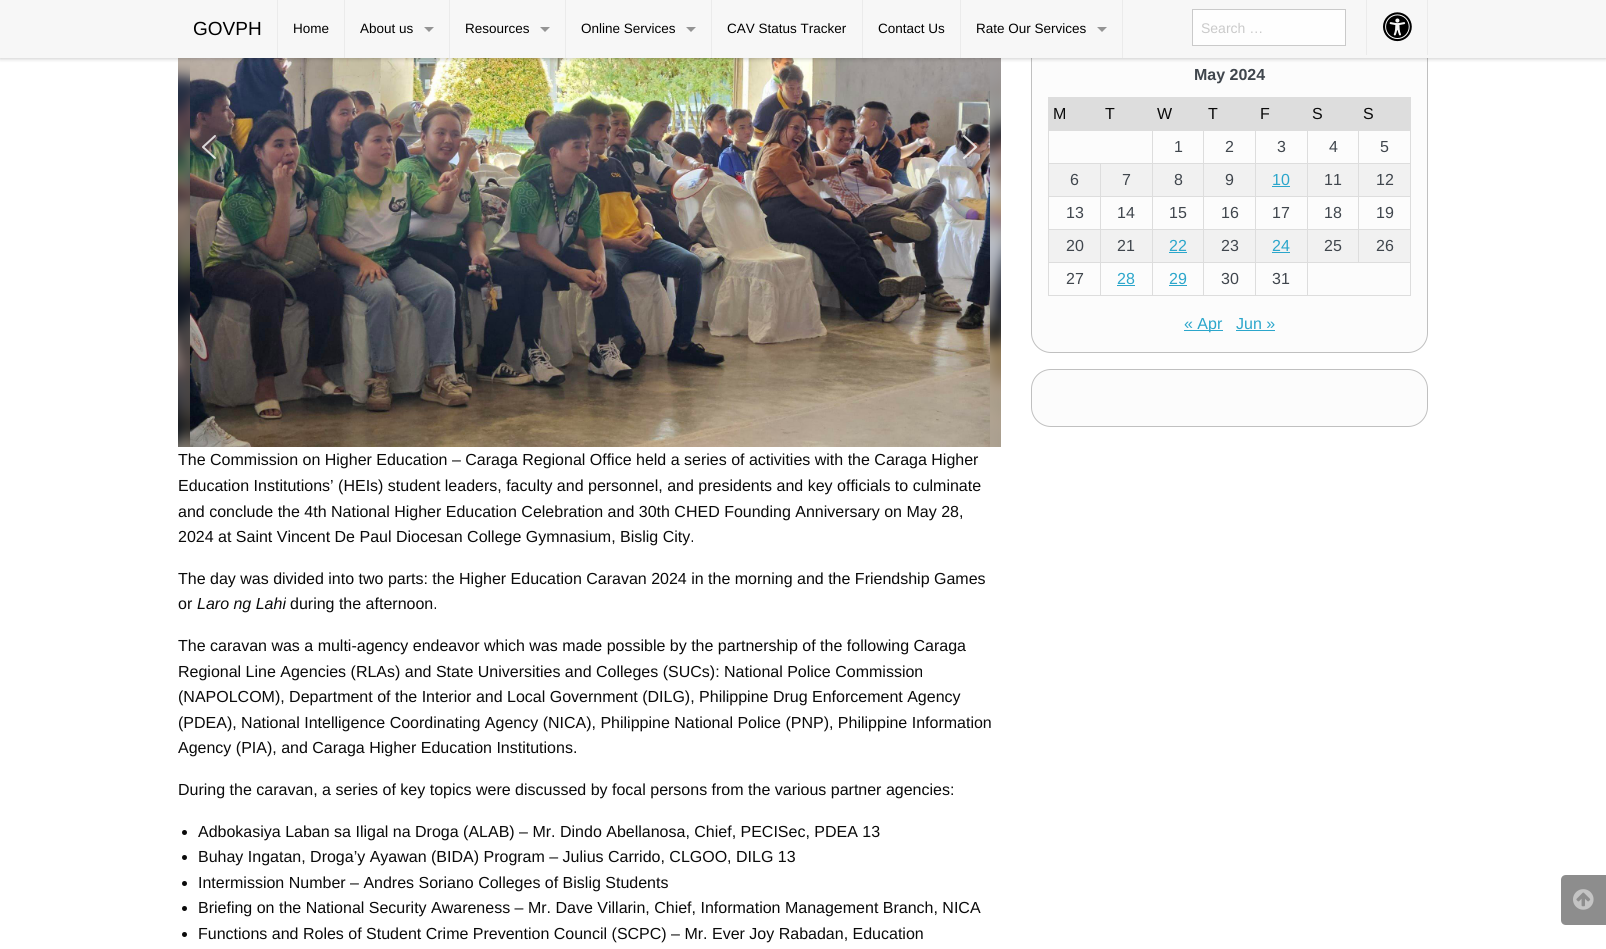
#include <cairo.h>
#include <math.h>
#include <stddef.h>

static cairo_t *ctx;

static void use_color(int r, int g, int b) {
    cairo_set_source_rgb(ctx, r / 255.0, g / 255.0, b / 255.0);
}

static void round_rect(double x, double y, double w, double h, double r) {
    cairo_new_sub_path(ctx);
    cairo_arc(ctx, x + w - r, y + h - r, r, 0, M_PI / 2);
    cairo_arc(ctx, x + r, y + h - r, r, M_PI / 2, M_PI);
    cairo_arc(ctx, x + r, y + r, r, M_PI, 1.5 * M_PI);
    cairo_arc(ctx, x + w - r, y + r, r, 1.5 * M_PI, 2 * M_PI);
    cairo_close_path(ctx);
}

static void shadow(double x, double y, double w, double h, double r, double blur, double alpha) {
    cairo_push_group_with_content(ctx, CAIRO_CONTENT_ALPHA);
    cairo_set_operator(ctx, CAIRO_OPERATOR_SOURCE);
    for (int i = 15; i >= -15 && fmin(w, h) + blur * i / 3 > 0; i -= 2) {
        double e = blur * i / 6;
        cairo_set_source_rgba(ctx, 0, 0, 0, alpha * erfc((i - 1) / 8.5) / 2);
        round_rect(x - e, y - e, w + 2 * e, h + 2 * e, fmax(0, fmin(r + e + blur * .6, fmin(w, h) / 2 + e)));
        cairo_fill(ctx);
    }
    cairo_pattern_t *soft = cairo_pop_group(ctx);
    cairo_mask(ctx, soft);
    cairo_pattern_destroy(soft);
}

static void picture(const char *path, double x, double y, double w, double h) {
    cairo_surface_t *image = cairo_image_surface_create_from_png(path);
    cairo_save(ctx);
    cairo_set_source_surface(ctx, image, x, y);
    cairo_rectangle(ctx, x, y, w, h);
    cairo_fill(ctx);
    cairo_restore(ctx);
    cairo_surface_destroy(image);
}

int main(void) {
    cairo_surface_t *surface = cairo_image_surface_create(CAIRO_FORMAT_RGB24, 1606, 949);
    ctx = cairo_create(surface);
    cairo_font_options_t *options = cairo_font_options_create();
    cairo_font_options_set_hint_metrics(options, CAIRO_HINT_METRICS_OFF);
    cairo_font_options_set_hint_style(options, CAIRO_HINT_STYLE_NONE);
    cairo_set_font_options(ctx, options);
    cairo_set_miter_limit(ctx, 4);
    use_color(255, 255, 255);
    cairo_paint(ctx);
    use_color(252, 252, 252);
    round_rect(1031.5, 38.5, 396, 314, 19.5);
    cairo_fill_preserve(ctx);
    use_color(192, 192, 192);
    cairo_set_line_width(ctx, 1);
    cairo_stroke(ctx);
    picture("img2.png", 178, 58, 823, 389);
    picture("img3.png", 190, 58, 800, 389);
    use_color(0, 0, 0);
    shadow(0, 1, 1606, 58, 0, 2, 0.2);
    use_color(247, 247, 247);
    cairo_rectangle(ctx, 0, 0, 1606, 58);
    cairo_fill(ctx);
    use_color(235, 235, 235);
    cairo_rectangle(ctx, 277, 0, 1, 58);
    cairo_fill(ctx);
    cairo_select_font_face(ctx, "Liberation Sans", CAIRO_FONT_SLANT_NORMAL, CAIRO_FONT_WEIGHT_NORMAL);
    cairo_set_font_size(ctx, 19);
    use_color(0, 0, 0);
    cairo_move_to(ctx, 193, 35);
    cairo_show_text(ctx, "GOVPH");
    use_color(235, 235, 235);
    cairo_rectangle(ctx, 344, 0, 1, 58);
    cairo_fill(ctx);
    cairo_set_font_size(ctx, 13.5);
    use_color(0, 0, 0);
    cairo_move_to(ctx, 293, 33);
    cairo_show_text(ctx, "Home");
    use_color(235, 235, 235);
    cairo_rectangle(ctx, 449, 0, 1, 58);
    cairo_fill(ctx);
    use_color(0, 0, 0);
    cairo_move_to(ctx, 360, 33);
    cairo_show_text(ctx, "About us");
    use_color(148, 148, 148);
    cairo_new_path(ctx);
    cairo_move_to(ctx, 424, 27);
    cairo_line_to(ctx, 434, 27);
    cairo_line_to(ctx, 429, 32);
    cairo_close_path(ctx);
    cairo_fill(ctx);
    use_color(235, 235, 235);
    cairo_rectangle(ctx, 565, 0, 1, 58);
    cairo_fill(ctx);
    use_color(0, 0, 0);
    cairo_move_to(ctx, 465, 33);
    cairo_show_text(ctx, "Resources");
    use_color(148, 148, 148);
    cairo_new_path(ctx);
    cairo_move_to(ctx, 540, 27);
    cairo_line_to(ctx, 550, 27);
    cairo_line_to(ctx, 545, 32);
    cairo_close_path(ctx);
    cairo_fill(ctx);
    use_color(235, 235, 235);
    cairo_rectangle(ctx, 711, 0, 1, 58);
    cairo_fill(ctx);
    use_color(0, 0, 0);
    cairo_move_to(ctx, 581, 33);
    cairo_show_text(ctx, "Online Services");
    use_color(148, 148, 148);
    cairo_new_path(ctx);
    cairo_move_to(ctx, 686, 27);
    cairo_line_to(ctx, 696, 27);
    cairo_line_to(ctx, 691, 32);
    cairo_close_path(ctx);
    cairo_fill(ctx);
    use_color(235, 235, 235);
    cairo_rectangle(ctx, 862, 0, 1, 58);
    cairo_fill(ctx);
    use_color(0, 0, 0);
    cairo_move_to(ctx, 727, 33);
    cairo_show_text(ctx, "CAV Status Tracker");
    use_color(235, 235, 235);
    cairo_rectangle(ctx, 960, 0, 1, 58);
    cairo_fill(ctx);
    use_color(0, 0, 0);
    cairo_move_to(ctx, 878, 33);
    cairo_show_text(ctx, "Contact Us");
    use_color(235, 235, 235);
    cairo_rectangle(ctx, 1122, 0, 1, 58);
    cairo_fill(ctx);
    use_color(0, 0, 0);
    cairo_move_to(ctx, 976, 33);
    cairo_show_text(ctx, "Rate Our Services");
    use_color(148, 148, 148);
    cairo_new_path(ctx);
    cairo_move_to(ctx, 1097, 27);
    cairo_line_to(ctx, 1107, 27);
    cairo_line_to(ctx, 1102, 32);
    cairo_close_path(ctx);
    cairo_fill(ctx);
    use_color(235, 235, 235);
    cairo_rectangle(ctx, 1366, 0, 1, 55);
    cairo_fill(ctx);
    use_color(254, 254, 254);
    cairo_rectangle(ctx, 1192.5, 9.5, 153, 36);
    cairo_fill_preserve(ctx);
    use_color(202, 202, 202);
    cairo_stroke(ctx);
    cairo_set_font_size(ctx, 14);
    cairo_move_to(ctx, 1201, 33);
    cairo_show_text(ctx, "Search …");
    use_color(235, 235, 235);
    cairo_rectangle(ctx, 1427, 0, 1, 55);
    cairo_fill(ctx);
    picture("img1.png", 1383, 12, 29, 30);
    cairo_select_font_face(ctx, "Liberation Sans", CAIRO_FONT_SLANT_NORMAL, CAIRO_FONT_WEIGHT_BOLD);
    cairo_set_font_size(ctx, 16);
    use_color(64, 70, 77);
    cairo_move_to(ctx, 1194, 80);
    cairo_show_text(ctx, "May 2024");
    use_color(221, 221, 221);
    cairo_rectangle(ctx, 1049, 98, 361, 32);
    cairo_fill(ctx);
    cairo_rectangle(ctx, 1048, 97, 363, 1);
    cairo_fill(ctx);
    cairo_rectangle(ctx, 1358, 130, 53, 1);
    cairo_fill(ctx);
    cairo_rectangle(ctx, 1358, 163, 53, 1);
    cairo_fill(ctx);
    use_color(241, 241, 241);
    cairo_rectangle(ctx, 1049, 164, 361, 32);
    cairo_fill(ctx);
    use_color(221, 221, 221);
    cairo_rectangle(ctx, 1358, 196, 53, 1);
    cairo_fill(ctx);
    cairo_rectangle(ctx, 1358, 229, 53, 1);
    cairo_fill(ctx);
    use_color(241, 241, 241);
    cairo_rectangle(ctx, 1049, 230, 361, 32);
    cairo_fill(ctx);
    use_color(221, 221, 221);
    cairo_rectangle(ctx, 1307, 262, 104, 1);
    cairo_fill(ctx);
    cairo_rectangle(ctx, 1358, 229, 1, 34);
    cairo_fill(ctx);
    cairo_rectangle(ctx, 1307, 229, 52, 1);
    cairo_fill(ctx);
    cairo_rectangle(ctx, 1358, 196, 1, 34);
    cairo_fill(ctx);
    cairo_rectangle(ctx, 1307, 196, 52, 1);
    cairo_fill(ctx);
    cairo_rectangle(ctx, 1358, 163, 1, 34);
    cairo_fill(ctx);
    cairo_rectangle(ctx, 1307, 163, 52, 1);
    cairo_fill(ctx);
    cairo_rectangle(ctx, 1358, 130, 1, 34);
    cairo_fill(ctx);
    cairo_rectangle(ctx, 1307, 130, 52, 1);
    cairo_fill(ctx);
    cairo_rectangle(ctx, 1410, 262, 1, 34);
    cairo_fill(ctx);
    cairo_rectangle(ctx, 1307, 295, 104, 1);
    cairo_fill(ctx);
    cairo_rectangle(ctx, 1307, 262, 1, 34);
    cairo_fill(ctx);
    cairo_rectangle(ctx, 1255, 262, 53, 1);
    cairo_fill(ctx);
    cairo_rectangle(ctx, 1307, 229, 1, 34);
    cairo_fill(ctx);
    cairo_rectangle(ctx, 1255, 229, 53, 1);
    cairo_fill(ctx);
    cairo_rectangle(ctx, 1307, 196, 1, 34);
    cairo_fill(ctx);
    cairo_rectangle(ctx, 1255, 196, 53, 1);
    cairo_fill(ctx);
    cairo_rectangle(ctx, 1307, 163, 1, 34);
    cairo_fill(ctx);
    cairo_rectangle(ctx, 1255, 163, 53, 1);
    cairo_fill(ctx);
    cairo_rectangle(ctx, 1307, 130, 1, 34);
    cairo_fill(ctx);
    cairo_rectangle(ctx, 1255, 130, 53, 1);
    cairo_fill(ctx);
    cairo_rectangle(ctx, 1255, 295, 53, 1);
    cairo_fill(ctx);
    cairo_rectangle(ctx, 1255, 262, 1, 34);
    cairo_fill(ctx);
    cairo_rectangle(ctx, 1203, 262, 53, 1);
    cairo_fill(ctx);
    cairo_rectangle(ctx, 1255, 229, 1, 34);
    cairo_fill(ctx);
    cairo_rectangle(ctx, 1203, 229, 53, 1);
    cairo_fill(ctx);
    cairo_rectangle(ctx, 1255, 196, 1, 34);
    cairo_fill(ctx);
    cairo_rectangle(ctx, 1203, 196, 53, 1);
    cairo_fill(ctx);
    cairo_rectangle(ctx, 1255, 163, 1, 34);
    cairo_fill(ctx);
    cairo_rectangle(ctx, 1203, 163, 53, 1);
    cairo_fill(ctx);
    cairo_rectangle(ctx, 1255, 130, 1, 34);
    cairo_fill(ctx);
    cairo_rectangle(ctx, 1203, 130, 53, 1);
    cairo_fill(ctx);
    cairo_rectangle(ctx, 1203, 295, 53, 1);
    cairo_fill(ctx);
    cairo_rectangle(ctx, 1203, 262, 1, 34);
    cairo_fill(ctx);
    cairo_rectangle(ctx, 1152, 262, 52, 1);
    cairo_fill(ctx);
    cairo_rectangle(ctx, 1203, 229, 1, 34);
    cairo_fill(ctx);
    cairo_rectangle(ctx, 1152, 229, 52, 1);
    cairo_fill(ctx);
    cairo_rectangle(ctx, 1203, 196, 1, 34);
    cairo_fill(ctx);
    cairo_rectangle(ctx, 1152, 196, 52, 1);
    cairo_fill(ctx);
    cairo_rectangle(ctx, 1203, 163, 1, 34);
    cairo_fill(ctx);
    cairo_rectangle(ctx, 1152, 163, 52, 1);
    cairo_fill(ctx);
    cairo_rectangle(ctx, 1203, 130, 1, 34);
    cairo_fill(ctx);
    cairo_rectangle(ctx, 1152, 130, 52, 1);
    cairo_fill(ctx);
    cairo_rectangle(ctx, 1152, 295, 52, 1);
    cairo_fill(ctx);
    cairo_rectangle(ctx, 1152, 262, 1, 34);
    cairo_fill(ctx);
    cairo_rectangle(ctx, 1100, 262, 53, 1);
    cairo_fill(ctx);
    cairo_rectangle(ctx, 1152, 229, 1, 34);
    cairo_fill(ctx);
    cairo_rectangle(ctx, 1100, 229, 53, 1);
    cairo_fill(ctx);
    cairo_rectangle(ctx, 1152, 196, 1, 34);
    cairo_fill(ctx);
    cairo_rectangle(ctx, 1100, 196, 53, 1);
    cairo_fill(ctx);
    cairo_rectangle(ctx, 1152, 163, 1, 34);
    cairo_fill(ctx);
    cairo_rectangle(ctx, 1100, 163, 53, 1);
    cairo_fill(ctx);
    cairo_rectangle(ctx, 1152, 130, 1, 34);
    cairo_fill(ctx);
    cairo_rectangle(ctx, 1048, 130, 105, 1);
    cairo_fill(ctx);
    cairo_rectangle(ctx, 1100, 295, 53, 1);
    cairo_fill(ctx);
    cairo_rectangle(ctx, 1100, 262, 1, 34);
    cairo_fill(ctx);
    cairo_rectangle(ctx, 1048, 262, 53, 1);
    cairo_fill(ctx);
    cairo_rectangle(ctx, 1100, 229, 1, 34);
    cairo_fill(ctx);
    cairo_rectangle(ctx, 1048, 229, 53, 1);
    cairo_fill(ctx);
    cairo_rectangle(ctx, 1100, 196, 1, 34);
    cairo_fill(ctx);
    cairo_rectangle(ctx, 1048, 196, 53, 1);
    cairo_fill(ctx);
    cairo_rectangle(ctx, 1100, 163, 1, 34);
    cairo_fill(ctx);
    cairo_rectangle(ctx, 1048, 163, 53, 1);
    cairo_fill(ctx);
    cairo_rectangle(ctx, 1048, 295, 53, 1);
    cairo_fill(ctx);
    cairo_rectangle(ctx, 1048, 262, 1, 34);
    cairo_fill(ctx);
    cairo_rectangle(ctx, 1048, 229, 1, 34);
    cairo_fill(ctx);
    cairo_rectangle(ctx, 1048, 196, 1, 34);
    cairo_fill(ctx);
    cairo_rectangle(ctx, 1048, 163, 1, 34);
    cairo_fill(ctx);
    cairo_rectangle(ctx, 1048, 130, 1, 34);
    cairo_fill(ctx);
    cairo_rectangle(ctx, 1048, 97, 1, 34);
    cairo_fill(ctx);
    cairo_select_font_face(ctx, "Liberation Sans", CAIRO_FONT_SLANT_NORMAL, CAIRO_FONT_WEIGHT_NORMAL);
    use_color(10, 10, 10);
    cairo_move_to(ctx, 1053, 119);
    cairo_show_text(ctx, "M");
    cairo_move_to(ctx, 1105, 119);
    cairo_show_text(ctx, "T");
    cairo_move_to(ctx, 1157, 119);
    cairo_show_text(ctx, "W");
    cairo_move_to(ctx, 1208, 119);
    cairo_show_text(ctx, "T");
    cairo_move_to(ctx, 1260, 119);
    cairo_show_text(ctx, "F");
    cairo_move_to(ctx, 1312, 119);
    cairo_show_text(ctx, "S");
    use_color(221, 221, 221);
    cairo_rectangle(ctx, 1410, 229, 1, 34);
    cairo_fill(ctx);
    cairo_rectangle(ctx, 1410, 196, 1, 34);
    cairo_fill(ctx);
    cairo_rectangle(ctx, 1410, 163, 1, 34);
    cairo_fill(ctx);
    cairo_rectangle(ctx, 1410, 130, 1, 34);
    cairo_fill(ctx);
    cairo_rectangle(ctx, 1410, 97, 1, 34);
    cairo_fill(ctx);
    use_color(10, 10, 10);
    cairo_move_to(ctx, 1363, 119);
    cairo_show_text(ctx, "S");
    use_color(64, 70, 77);
    cairo_move_to(ctx, 1174, 152);
    cairo_show_text(ctx, "1");
    cairo_move_to(ctx, 1225, 152);
    cairo_show_text(ctx, "2");
    cairo_move_to(ctx, 1277, 152);
    cairo_show_text(ctx, "3");
    cairo_move_to(ctx, 1329, 152);
    cairo_show_text(ctx, "4");
    cairo_move_to(ctx, 1380, 152);
    cairo_show_text(ctx, "5");
    cairo_move_to(ctx, 1070, 185);
    cairo_show_text(ctx, "6");
    cairo_move_to(ctx, 1122, 185);
    cairo_show_text(ctx, "7");
    cairo_move_to(ctx, 1174, 185);
    cairo_show_text(ctx, "8");
    cairo_move_to(ctx, 1225, 185);
    cairo_show_text(ctx, "9");
    use_color(43, 166, 203);
    cairo_move_to(ctx, 1272, 185);
    cairo_show_text(ctx, "10");
    cairo_rectangle(ctx, 1272, 186, 18, 1);
    cairo_fill(ctx);
    use_color(64, 70, 77);
    cairo_move_to(ctx, 1324, 185);
    cairo_show_text(ctx, "11");
    cairo_move_to(ctx, 1376, 185);
    cairo_show_text(ctx, "12");
    cairo_move_to(ctx, 1066, 218);
    cairo_show_text(ctx, "13");
    cairo_move_to(ctx, 1117, 218);
    cairo_show_text(ctx, "14");
    cairo_move_to(ctx, 1169, 218);
    cairo_show_text(ctx, "15");
    cairo_move_to(ctx, 1221, 218);
    cairo_show_text(ctx, "16");
    cairo_move_to(ctx, 1272, 218);
    cairo_show_text(ctx, "17");
    cairo_move_to(ctx, 1324, 218);
    cairo_show_text(ctx, "18");
    cairo_move_to(ctx, 1376, 218);
    cairo_show_text(ctx, "19");
    cairo_move_to(ctx, 1066, 251);
    cairo_show_text(ctx, "20");
    cairo_move_to(ctx, 1117, 251);
    cairo_show_text(ctx, "21");
    use_color(43, 166, 203);
    cairo_move_to(ctx, 1169, 251);
    cairo_show_text(ctx, "22");
    cairo_rectangle(ctx, 1169, 252, 18, 1);
    cairo_fill(ctx);
    use_color(64, 70, 77);
    cairo_move_to(ctx, 1221, 251);
    cairo_show_text(ctx, "23");
    use_color(43, 166, 203);
    cairo_move_to(ctx, 1272, 251);
    cairo_show_text(ctx, "24");
    cairo_rectangle(ctx, 1272, 252, 18, 1);
    cairo_fill(ctx);
    use_color(64, 70, 77);
    cairo_move_to(ctx, 1324, 251);
    cairo_show_text(ctx, "25");
    cairo_move_to(ctx, 1376, 251);
    cairo_show_text(ctx, "26");
    cairo_move_to(ctx, 1066, 284);
    cairo_show_text(ctx, "27");
    use_color(43, 166, 203);
    cairo_move_to(ctx, 1117, 284);
    cairo_show_text(ctx, "28");
    cairo_rectangle(ctx, 1117, 285, 18, 1);
    cairo_fill(ctx);
    cairo_move_to(ctx, 1169, 284);
    cairo_show_text(ctx, "29");
    cairo_rectangle(ctx, 1169, 285, 18, 1);
    cairo_fill(ctx);
    use_color(64, 70, 77);
    cairo_move_to(ctx, 1221, 284);
    cairo_show_text(ctx, "30");
    cairo_move_to(ctx, 1272, 284);
    cairo_show_text(ctx, "31");
    use_color(43, 166, 203);
    cairo_rectangle(ctx, 1184, 330, 39, 1);
    cairo_fill(ctx);
    cairo_move_to(ctx, 1184, 329);
    cairo_show_text(ctx, "« Apr");
    cairo_move_to(ctx, 1236, 329);
    cairo_show_text(ctx, "Jun »");
    cairo_rectangle(ctx, 1236, 330, 39, 1);
    cairo_fill(ctx);
    use_color(252, 252, 252);
    round_rect(1031.5, 369.5, 396, 57, 19.5);
    cairo_fill_preserve(ctx);
    use_color(192, 192, 192);
    cairo_stroke(ctx);
    picture("img4.png", 202, 135, 14, 24);
    picture("img5.png", 963, 135, 14, 24);
    use_color(10, 10, 10);
    cairo_move_to(ctx, 178, 465);
    cairo_show_text(ctx, "The Commission on Higher Education – Caraga Regional Office held a series of activities with the Caraga Higher");
    cairo_move_to(ctx, 178, 491);
    cairo_show_text(ctx, "Education Institutions’ (HEIs) student leaders, faculty and personnel, and presidents and key officials to culminate");
    cairo_move_to(ctx, 178, 517);
    cairo_show_text(ctx, "and conclude the 4th National Higher Education Celebration and 30th CHED Founding Anniversary on May 28,");
    cairo_move_to(ctx, 178, 542);
    cairo_show_text(ctx, "2024 at Saint Vincent De Paul Diocesan College Gymnasium, Bislig City.");
    cairo_move_to(ctx, 178, 584);
    cairo_show_text(ctx, "The day was divided into two parts: the Higher Education Caravan 2024 in the morning and the Friendship Games");
    cairo_move_to(ctx, 178, 609);
    cairo_show_text(ctx, "or");
    cairo_select_font_face(ctx, "Liberation Sans", CAIRO_FONT_SLANT_ITALIC, CAIRO_FONT_WEIGHT_NORMAL);
    cairo_move_to(ctx, 197, 609);
    cairo_show_text(ctx, "Laro ng Lahi");
    cairo_select_font_face(ctx, "Liberation Sans", CAIRO_FONT_SLANT_NORMAL, CAIRO_FONT_WEIGHT_NORMAL);
    cairo_move_to(ctx, 290, 609);
    cairo_show_text(ctx, "during the afternoon.");
    cairo_move_to(ctx, 178, 651);
    cairo_show_text(ctx, "The caravan was a multi-agency endeavor which was made possible by the partnership of the following Caraga");
    cairo_move_to(ctx, 178, 677);
    cairo_show_text(ctx, "Regional Line Agencies (RLAs) and State Universities and Colleges (SUCs): National Police Commission");
    cairo_move_to(ctx, 178, 702);
    cairo_show_text(ctx, "(NAPOLCOM), Department of the Interior and Local Government (DILG), Philippine Drug Enforcement Agency");
    cairo_move_to(ctx, 178, 728);
    cairo_show_text(ctx, "(PDEA), National Intelligence Coordinating Agency (NICA), Philippine National Police (PNP), Philippine Information");
    cairo_move_to(ctx, 178, 753);
    cairo_show_text(ctx, "Agency (PIA), and Caraga Higher Education Institutions.");
    cairo_move_to(ctx, 178, 795);
    cairo_show_text(ctx, "During the caravan, a series of key topics were discussed by focal persons from the various partner agencies:");
    cairo_new_path(ctx);
    cairo_arc(ctx, 184.5, 832.5, 2.5, 0, 2 * M_PI);
    cairo_fill(ctx);
    cairo_move_to(ctx, 198, 837);
    cairo_show_text(ctx, "Adbokasiya Laban sa Iligal na Droga (ALAB) – Mr. Dindo Abellanosa, Chief, PECISec, PDEA 13");
    cairo_new_path(ctx);
    cairo_arc(ctx, 184.5, 857.5, 2.5, 0, 2 * M_PI);
    cairo_fill(ctx);
    cairo_move_to(ctx, 198, 862);
    cairo_show_text(ctx, "Buhay Ingatan, Droga’y Ayawan (BIDA) Program – Julius Carrido, CLGOO, DILG 13");
    cairo_new_path(ctx);
    cairo_arc(ctx, 184.5, 883.5, 2.5, 0, 2 * M_PI);
    cairo_fill(ctx);
    cairo_move_to(ctx, 198, 888);
    cairo_show_text(ctx, "Intermission Number – Andres Soriano Colleges of Bislig Students");
    cairo_new_path(ctx);
    cairo_arc(ctx, 184.5, 908.5, 2.5, 0, 2 * M_PI);
    cairo_fill(ctx);
    cairo_move_to(ctx, 198, 913);
    cairo_show_text(ctx, "Briefing on the National Security Awareness – Mr. Dave Villarin, Chief, Information Management Branch, NICA");
    cairo_new_path(ctx);
    cairo_arc(ctx, 184.5, 934.5, 2.5, 0, 2 * M_PI);
    cairo_fill(ctx);
    cairo_move_to(ctx, 198, 939);
    cairo_show_text(ctx, "Functions and Roles of Student Crime Prevention Council (SCPC) – Mr. Ever Joy Rabadan, Education");
    use_color(141, 141, 141);
    cairo_new_path(ctx);
    cairo_move_to(ctx, 1566, 875);
    cairo_line_to(ctx, 1606, 875);
    cairo_line_to(ctx, 1606, 925);
    cairo_line_to(ctx, 1566, 925);
    cairo_curve_to(ctx, 1563, 925, 1561, 923, 1561, 920);
    cairo_line_to(ctx, 1561, 880);
    cairo_curve_to(ctx, 1561, 877, 1563, 875, 1566, 875);
    cairo_close_path(ctx);
    cairo_fill(ctx);
    picture("img6.png", 1573, 889, 21, 21);
    cairo_surface_write_to_png(surface, "result.png");
    cairo_font_options_destroy(options);
    cairo_destroy(ctx);
    cairo_surface_destroy(surface);
    return 0;
}
